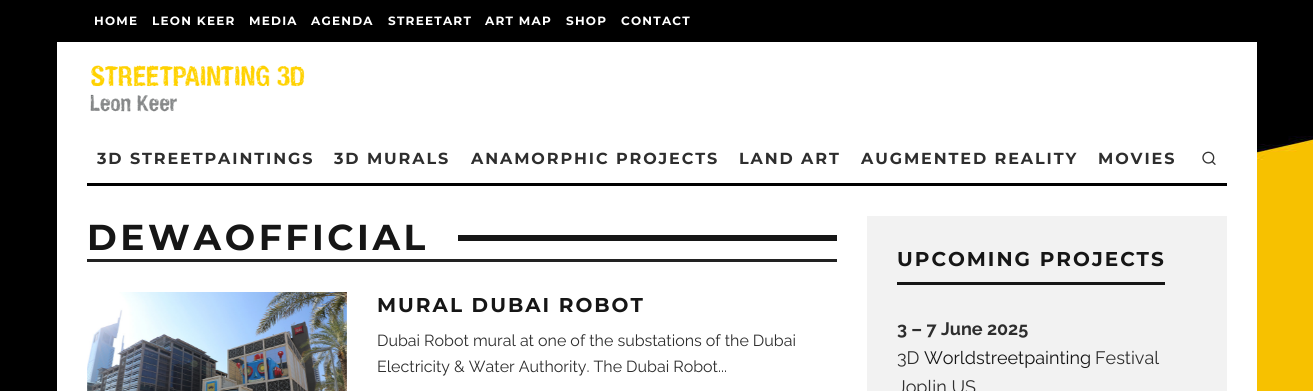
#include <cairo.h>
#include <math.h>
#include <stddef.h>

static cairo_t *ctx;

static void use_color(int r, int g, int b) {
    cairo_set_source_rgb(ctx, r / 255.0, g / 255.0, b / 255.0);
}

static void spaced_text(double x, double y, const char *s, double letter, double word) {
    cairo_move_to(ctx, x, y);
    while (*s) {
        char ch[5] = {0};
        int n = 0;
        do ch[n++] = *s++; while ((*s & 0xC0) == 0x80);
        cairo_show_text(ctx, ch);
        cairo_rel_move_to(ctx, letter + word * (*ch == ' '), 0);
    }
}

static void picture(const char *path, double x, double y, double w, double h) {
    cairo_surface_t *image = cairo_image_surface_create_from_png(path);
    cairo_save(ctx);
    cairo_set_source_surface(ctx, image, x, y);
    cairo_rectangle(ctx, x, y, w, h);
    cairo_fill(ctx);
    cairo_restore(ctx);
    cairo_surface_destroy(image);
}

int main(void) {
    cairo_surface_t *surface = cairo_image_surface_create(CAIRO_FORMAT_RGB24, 1313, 391);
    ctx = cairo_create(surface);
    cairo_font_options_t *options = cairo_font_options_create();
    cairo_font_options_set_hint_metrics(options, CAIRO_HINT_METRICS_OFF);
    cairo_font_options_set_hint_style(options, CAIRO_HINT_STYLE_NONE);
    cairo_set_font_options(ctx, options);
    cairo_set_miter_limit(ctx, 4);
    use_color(255, 255, 255);
    cairo_paint(ctx);
    picture("img1.png", 0, 0, 1313, 391);
    cairo_select_font_face(ctx, "Montserrat", CAIRO_FONT_SLANT_NORMAL, CAIRO_FONT_WEIGHT_BOLD);
    cairo_set_font_size(ctx, 12);
    use_color(255, 255, 255);
    spaced_text(94, 25, "HOME", 1.25, 0);
    spaced_text(152, 25, "LEON KEER", 1.25, 0);
    spaced_text(249, 25, "MEDIA", 1.25, 0);
    spaced_text(311, 25, "AGENDA", 1.25, 0);
    spaced_text(388, 25, "STREETART", 1.25, 0);
    spaced_text(485, 25, "ART MAP", 1.25, 0);
    spaced_text(566, 25, "SHOP", 1.25, 0);
    spaced_text(621, 25, "CONTACT", 1.25, 0);
    cairo_rectangle(ctx, 57, 42, 1200, 144);
    cairo_fill(ctx);
    picture("img2.png", 90, 65, 215, 47);
    use_color(0, 0, 0);
    cairo_rectangle(ctx, 87, 183, 1140, 3);
    cairo_fill(ctx);
    cairo_set_font_size(ctx, 16);
    use_color(46, 46, 46);
    spaced_text(97, 164, "3D STREETPAINTINGS", 1.9, 0);
    spaced_text(334, 164, "3D MURALS", 1.9, 0);
    spaced_text(471, 164, "ANAMORPHIC PROJECTS", 1.9, 0);
    spaced_text(739, 164, "LAND ART", 1.9, 0);
    spaced_text(861, 164, "AUGMENTED REALITY", 1.9, 0);
    spaced_text(1098, 164, "MOVIES", 1.9, 0);
    picture("img3.png", 1202, 151, 14, 14);
    use_color(255, 255, 255);
    cairo_rectangle(ctx, 57, 186, 1200, 205);
    cairo_fill(ctx);
    use_color(34, 34, 34);
    cairo_rectangle(ctx, 87, 259, 750, 3);
    cairo_fill(ctx);
    cairo_set_font_size(ctx, 36);
    use_color(22, 22, 22);
    spaced_text(87, 250, "DEWAOFFICIAL", 3.6, 0);
    cairo_rectangle(ctx, 458, 235, 379, 6);
    cairo_fill(ctx);
    picture("img4.png", 87, 292, 260, 99);
    cairo_set_font_size(ctx, 20);
    spaced_text(377, 312, "MURAL DUBAI ROBOT", 2, 0);
    cairo_select_font_face(ctx, "Raleway", CAIRO_FONT_SLANT_NORMAL, CAIRO_FONT_WEIGHT_NORMAL);
    cairo_set_font_size(ctx, 16);
    use_color(46, 46, 46);
    cairo_move_to(ctx, 377, 346);
    cairo_show_text(ctx, "Dubai Robot mural at one of the substations of the Dubai");
    cairo_move_to(ctx, 377, 372);
    cairo_show_text(ctx, "Electricity & Water Authority. The Dubai Robot...");
    use_color(242, 242, 242);
    cairo_rectangle(ctx, 867, 216, 360, 175);
    cairo_fill(ctx);
    use_color(22, 22, 22);
    cairo_rectangle(ctx, 897, 282, 268, 3);
    cairo_fill(ctx);
    cairo_select_font_face(ctx, "Montserrat", CAIRO_FONT_SLANT_NORMAL, CAIRO_FONT_WEIGHT_BOLD);
    cairo_set_font_size(ctx, 20);
    spaced_text(897, 266, "UPCOMING PROJECTS", 2, 0);
    cairo_select_font_face(ctx, "Raleway", CAIRO_FONT_SLANT_NORMAL, CAIRO_FONT_WEIGHT_BOLD);
    cairo_set_font_size(ctx, 18);
    use_color(46, 46, 46);
    cairo_move_to(ctx, 897, 335);
    cairo_show_text(ctx, "3 – 7 June 2025");
    cairo_select_font_face(ctx, "Raleway", CAIRO_FONT_SLANT_NORMAL, CAIRO_FONT_WEIGHT_NORMAL);
    cairo_move_to(ctx, 897, 364);
    cairo_show_text(ctx, "3D");
    use_color(22, 22, 22);
    cairo_move_to(ctx, 924, 364);
    cairo_show_text(ctx, "Worldstreetpainting");
    use_color(46, 46, 46);
    cairo_move_to(ctx, 1095, 364);
    cairo_show_text(ctx, "Festival");
    cairo_move_to(ctx, 897, 393);
    cairo_show_text(ctx, "Joplin US");
    cairo_surface_write_to_png(surface, "result.png");
    cairo_font_options_destroy(options);
    cairo_destroy(ctx);
    cairo_surface_destroy(surface);
    return 0;
}
